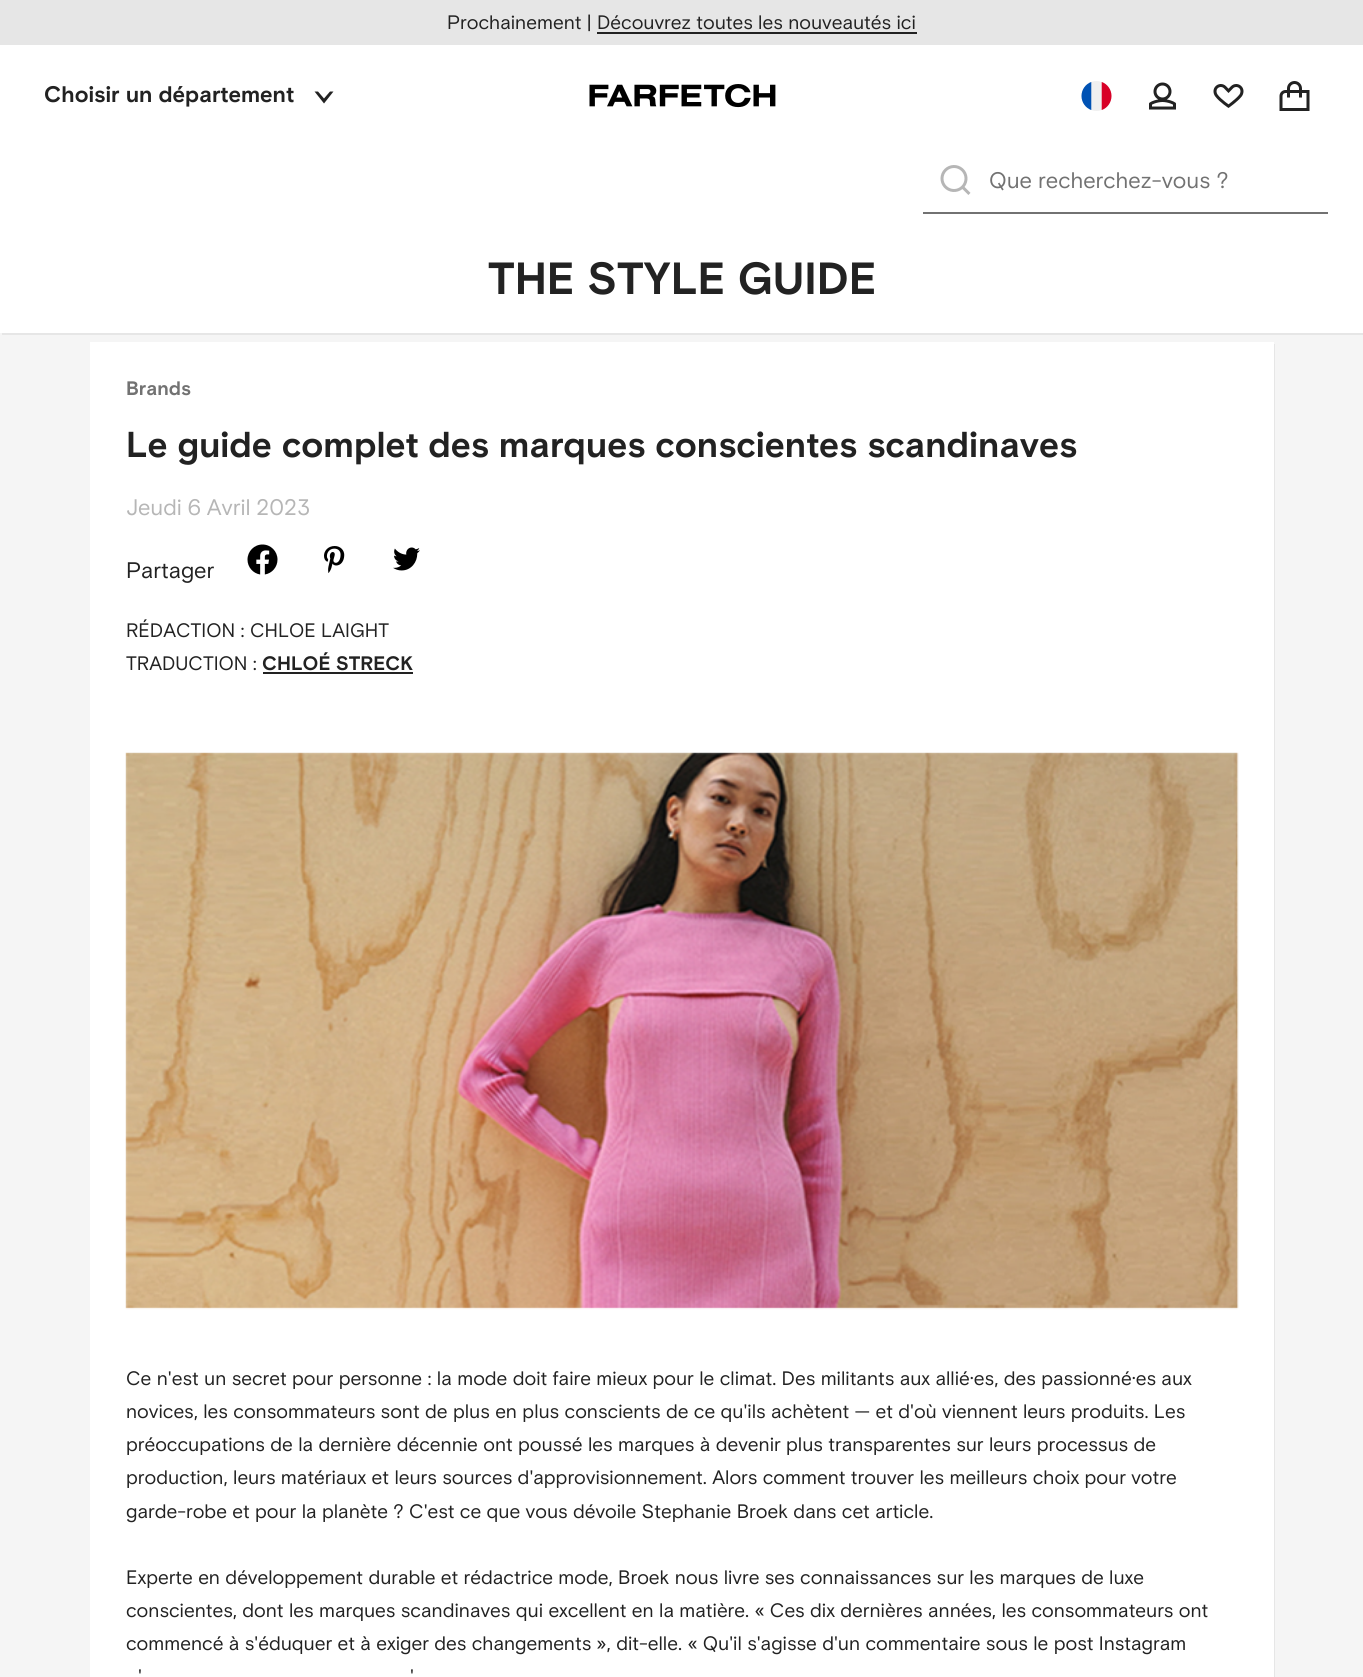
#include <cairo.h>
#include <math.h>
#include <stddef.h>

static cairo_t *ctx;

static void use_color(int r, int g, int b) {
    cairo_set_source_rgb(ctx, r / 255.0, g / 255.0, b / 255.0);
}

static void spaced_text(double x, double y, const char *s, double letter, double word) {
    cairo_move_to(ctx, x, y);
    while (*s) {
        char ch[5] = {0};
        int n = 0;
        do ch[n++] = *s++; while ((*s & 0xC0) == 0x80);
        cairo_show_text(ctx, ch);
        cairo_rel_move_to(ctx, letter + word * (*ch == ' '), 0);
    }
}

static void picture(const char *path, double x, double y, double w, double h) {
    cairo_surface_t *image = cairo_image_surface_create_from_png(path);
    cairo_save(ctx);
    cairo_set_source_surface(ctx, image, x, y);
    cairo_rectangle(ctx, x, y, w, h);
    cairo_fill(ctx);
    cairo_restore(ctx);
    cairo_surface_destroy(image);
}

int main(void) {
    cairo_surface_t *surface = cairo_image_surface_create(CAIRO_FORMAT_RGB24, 1363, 1677);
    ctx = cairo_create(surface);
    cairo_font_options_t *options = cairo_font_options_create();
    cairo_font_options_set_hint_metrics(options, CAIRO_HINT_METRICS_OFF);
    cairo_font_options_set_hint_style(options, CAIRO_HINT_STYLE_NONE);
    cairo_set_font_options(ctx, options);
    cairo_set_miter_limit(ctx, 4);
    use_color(255, 255, 255);
    cairo_paint(ctx);
    use_color(230, 230, 230);
    cairo_rectangle(ctx, 0, 0, 1363, 45);
    cairo_fill(ctx);
    cairo_select_font_face(ctx, "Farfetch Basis", CAIRO_FONT_SLANT_NORMAL, CAIRO_FONT_WEIGHT_NORMAL);
    cairo_set_font_size(ctx, 19.5);
    use_color(34, 34, 34);
    cairo_move_to(ctx, 447, 29);
    cairo_show_text(ctx, "Prochainement | Découvrez toutes les nouveautés ici");
    cairo_rectangle(ctx, 597, 32, 320, 2);
    cairo_fill(ctx);
    cairo_select_font_face(ctx, "Farfetch Basis", CAIRO_FONT_SLANT_NORMAL, CAIRO_FONT_WEIGHT_BOLD);
    cairo_set_font_size(ctx, 22.5);
    cairo_move_to(ctx, 44, 102);
    cairo_show_text(ctx, "Choisir un département");
    cairo_set_fill_rule(ctx, CAIRO_FILL_RULE_EVEN_ODD);
    cairo_new_path(ctx);
    cairo_move_to(ctx, 314.5, 91.5);
    cairo_line_to(ctx, 324, 103.5);
    cairo_line_to(ctx, 333.5, 91.5);
    cairo_line_to(ctx, 330, 91.5);
    cairo_line_to(ctx, 324, 98.5);
    cairo_line_to(ctx, 318, 91.5);
    cairo_close_path(ctx);
    cairo_fill(ctx);
    picture("img1.png", 589, 84, 187, 24);
    picture("img2.png", 1081, 81, 31, 30);
    picture("img3.png", 1149, 82, 27, 28);
    picture("img4.png", 1213, 84, 31, 24);
    picture("img5.png", 1279, 81, 31, 30);
    use_color(114, 114, 114);
    cairo_rectangle(ctx, 923, 212, 405, 2);
    cairo_fill(ctx);
    picture("img6.png", 940, 165, 31, 30);
    cairo_select_font_face(ctx, "Farfetch Basis", CAIRO_FONT_SLANT_NORMAL, CAIRO_FONT_WEIGHT_NORMAL);
    cairo_move_to(ctx, 989, 188);
    cairo_show_text(ctx, "Que recherchez-vous ?");
    use_color(245, 245, 245);
    cairo_rectangle(ctx, 0, 333, 1363, 1344);
    cairo_fill(ctx);
    use_color(230, 230, 230);
    cairo_set_fill_rule(ctx, CAIRO_FILL_RULE_WINDING);
    cairo_new_path(ctx);
    cairo_move_to(ctx, 2, 333);
    cairo_line_to(ctx, 2, 335);
    cairo_line_to(ctx, 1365, 335);
    cairo_line_to(ctx, 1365, 233);
    cairo_line_to(ctx, 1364, 233);
    cairo_line_to(ctx, 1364, 333);
    cairo_close_path(ctx);
    cairo_fill(ctx);
    cairo_select_font_face(ctx, "Farfetch Basis", CAIRO_FONT_SLANT_NORMAL, CAIRO_FONT_WEIGHT_BOLD);
    cairo_set_font_size(ctx, 45);
    use_color(34, 34, 34);
    cairo_move_to(ctx, 488, 294);
    cairo_show_text(ctx, "THE STYLE GUIDE");
    use_color(230, 230, 230);
    cairo_new_path(ctx);
    cairo_move_to(ctx, 92, 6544);
    cairo_line_to(ctx, 92, 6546);
    cairo_line_to(ctx, 1275, 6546);
    cairo_line_to(ctx, 1275, 344);
    cairo_line_to(ctx, 1274, 344);
    cairo_line_to(ctx, 1274, 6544);
    cairo_close_path(ctx);
    cairo_fill(ctx);
    use_color(255, 255, 255);
    cairo_rectangle(ctx, 90, 342, 1184, 1335);
    cairo_fill(ctx);
    cairo_set_font_size(ctx, 19.5);
    use_color(114, 114, 114);
    cairo_move_to(ctx, 126, 395);
    cairo_show_text(ctx, "Brands");
    cairo_set_font_size(ctx, 36);
    use_color(34, 34, 34);
    cairo_move_to(ctx, 126, 457);
    cairo_show_text(ctx, "Le guide complet des marques conscientes scandinaves");
    cairo_select_font_face(ctx, "Farfetch Basis", CAIRO_FONT_SLANT_NORMAL, CAIRO_FONT_WEIGHT_NORMAL);
    cairo_set_font_size(ctx, 22.5);
    use_color(182, 182, 182);
    spaced_text(126, 515, "Jeudi 6 Avril 2023", 0, -0.5);
    use_color(34, 34, 34);
    cairo_move_to(ctx, 126, 578);
    cairo_show_text(ctx, "Partager");
    picture("img7.png", 247, 544, 31, 31);
    picture("img8.png", 324, 546, 21, 27);
    picture("img9.png", 393, 547, 27, 24);
    cairo_set_font_size(ctx, 19.5);
    cairo_move_to(ctx, 126, 637);
    cairo_show_text(ctx, "RÉDACTION : CHLOE LAIGHT");
    cairo_move_to(ctx, 126, 670);
    cairo_show_text(ctx, "TRADUCTION :");
    cairo_select_font_face(ctx, "Farfetch Basis", CAIRO_FONT_SLANT_NORMAL, CAIRO_FONT_WEIGHT_BOLD);
    cairo_move_to(ctx, 262, 670);
    cairo_show_text(ctx, "CHLOÉ STRECK");
    cairo_rectangle(ctx, 263, 672, 150, 2);
    cairo_fill(ctx);
    picture("img10.png", 125, 752, 1114, 558);
    cairo_select_font_face(ctx, "Farfetch Basis", CAIRO_FONT_SLANT_NORMAL, CAIRO_FONT_WEIGHT_NORMAL);
    cairo_move_to(ctx, 126, 1385);
    cairo_show_text(ctx, "Ce n'est un secret pour personne : la mode doit faire mieux pour le climat. Des militants aux allié·es, des passionné·es aux");
    cairo_move_to(ctx, 126, 1418);
    cairo_show_text(ctx, "novices, les consommateurs sont de plus en plus conscients de ce qu'ils achètent — et d'où viennent leurs produits. Les");
    cairo_move_to(ctx, 126, 1451);
    cairo_show_text(ctx, "préoccupations de la dernière décennie ont poussé les marques à devenir plus transparentes sur leurs processus de");
    cairo_move_to(ctx, 126, 1484);
    cairo_show_text(ctx, "production, leurs matériaux et leurs sources d'approvisionnement. Alors comment trouver les meilleurs choix pour votre");
    cairo_move_to(ctx, 126, 1518);
    cairo_show_text(ctx, "garde-robe et pour la planète ? C'est ce que vous dévoile Stephanie Broek dans cet article.");
    cairo_move_to(ctx, 126, 1584);
    cairo_show_text(ctx, "Experte en développement durable et rédactrice mode, Broek nous livre ses connaissances sur les marques de luxe");
    cairo_move_to(ctx, 126, 1617);
    cairo_show_text(ctx, "conscientes, dont les marques scandinaves qui excellent en la matière. « Ces dix dernières années, les consommateurs ont");
    cairo_move_to(ctx, 126, 1650);
    cairo_show_text(ctx, "commencé à s'éduquer et à exiger des changements », dit-elle. « Qu'il s'agisse d'un commentaire sous le post Instagram");
    cairo_move_to(ctx, 138, 1683);
    cairo_show_text(ctx, "'");
    cairo_move_to(ctx, 410, 1683);
    cairo_show_text(ctx, "'");
    cairo_surface_write_to_png(surface, "result.png");
    cairo_font_options_destroy(options);
    cairo_destroy(ctx);
    cairo_surface_destroy(surface);
    return 0;
}
